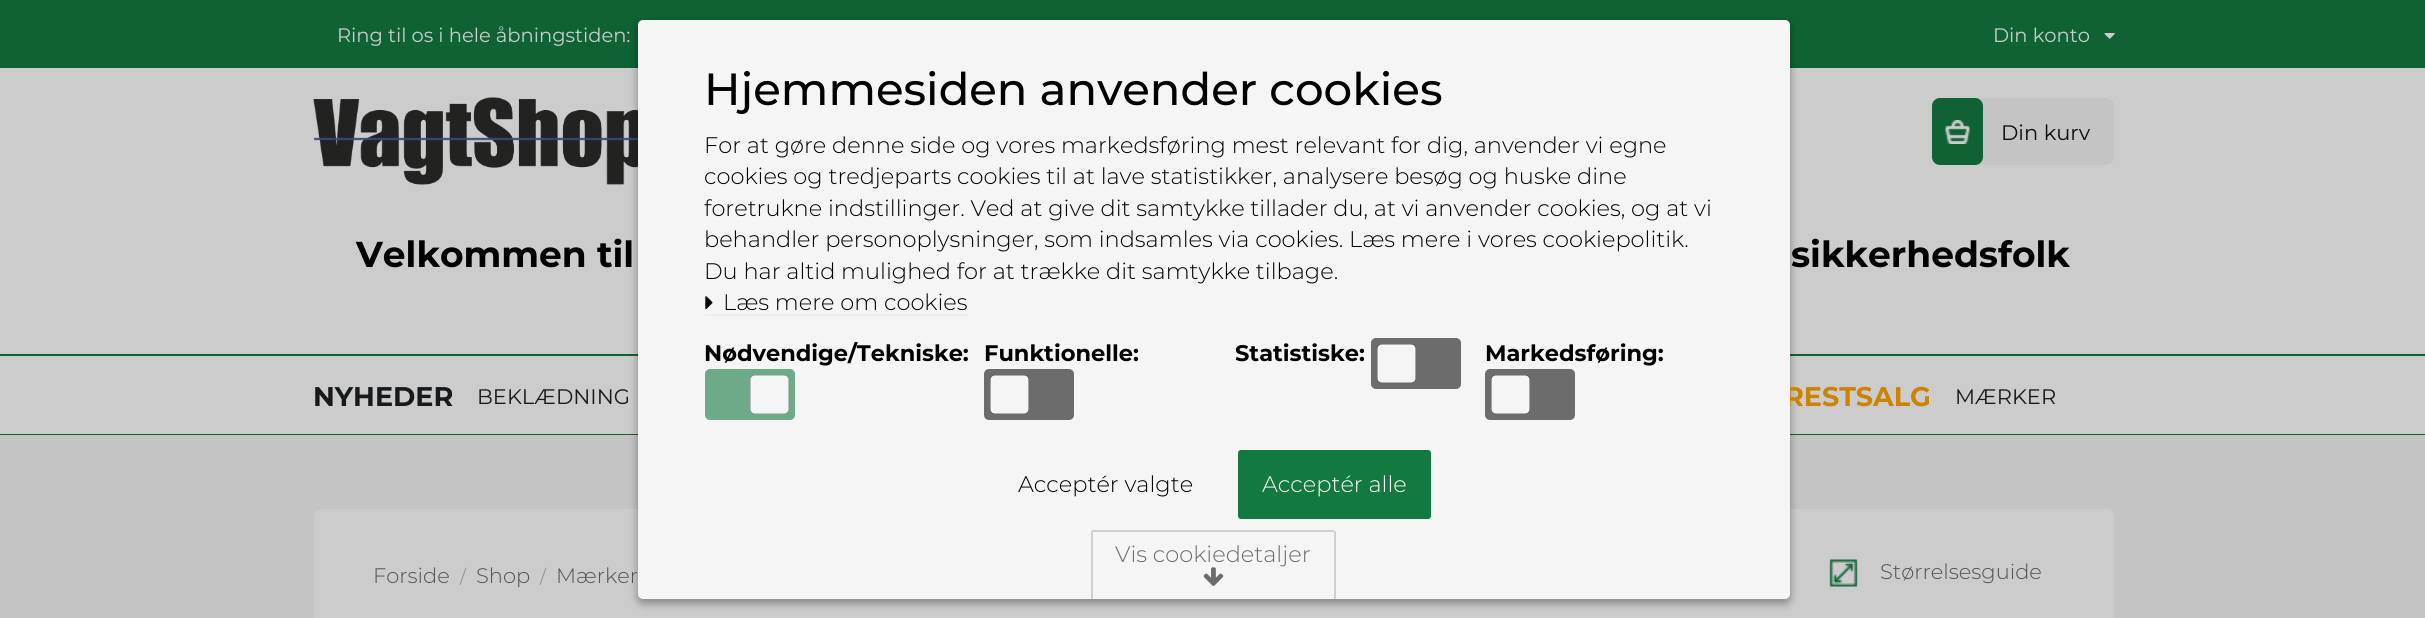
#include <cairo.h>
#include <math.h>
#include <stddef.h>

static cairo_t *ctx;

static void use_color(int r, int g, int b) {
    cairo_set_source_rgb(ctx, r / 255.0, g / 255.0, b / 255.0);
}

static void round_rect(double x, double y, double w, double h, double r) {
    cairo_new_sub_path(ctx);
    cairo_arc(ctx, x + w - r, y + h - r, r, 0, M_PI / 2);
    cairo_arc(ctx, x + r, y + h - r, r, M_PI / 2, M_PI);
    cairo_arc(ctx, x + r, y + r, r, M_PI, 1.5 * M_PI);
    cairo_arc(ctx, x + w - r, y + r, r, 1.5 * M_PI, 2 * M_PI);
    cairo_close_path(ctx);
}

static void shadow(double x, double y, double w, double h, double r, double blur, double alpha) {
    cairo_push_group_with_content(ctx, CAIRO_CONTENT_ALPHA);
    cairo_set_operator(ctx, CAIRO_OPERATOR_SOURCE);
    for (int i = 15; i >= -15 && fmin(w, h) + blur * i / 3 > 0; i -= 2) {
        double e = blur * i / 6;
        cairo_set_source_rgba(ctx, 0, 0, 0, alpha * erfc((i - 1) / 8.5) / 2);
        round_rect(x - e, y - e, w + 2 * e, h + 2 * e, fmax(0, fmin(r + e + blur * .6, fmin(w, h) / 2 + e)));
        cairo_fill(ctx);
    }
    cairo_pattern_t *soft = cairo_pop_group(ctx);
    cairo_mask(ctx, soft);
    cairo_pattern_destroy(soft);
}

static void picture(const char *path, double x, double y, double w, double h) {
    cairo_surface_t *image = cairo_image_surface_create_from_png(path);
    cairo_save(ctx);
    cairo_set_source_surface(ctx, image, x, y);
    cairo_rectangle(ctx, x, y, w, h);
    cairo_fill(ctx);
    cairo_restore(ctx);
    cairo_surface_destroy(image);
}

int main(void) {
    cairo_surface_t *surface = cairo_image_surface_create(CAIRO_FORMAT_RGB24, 2425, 618);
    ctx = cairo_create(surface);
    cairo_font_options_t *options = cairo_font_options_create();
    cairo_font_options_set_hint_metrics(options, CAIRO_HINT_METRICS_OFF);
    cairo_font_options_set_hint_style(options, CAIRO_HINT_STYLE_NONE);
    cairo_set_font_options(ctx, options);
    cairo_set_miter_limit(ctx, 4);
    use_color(204, 204, 204);
    cairo_paint(ctx);
    use_color(14, 98, 51);
    cairo_rectangle(ctx, 0, 0, 2425, 68);
    cairo_fill(ctx);
    cairo_select_font_face(ctx, "Montserrat", CAIRO_FONT_SLANT_NORMAL, CAIRO_FONT_WEIGHT_NORMAL);
    cairo_set_font_size(ctx, 19.5);
    use_color(204, 204, 204);
    cairo_move_to(ctx, 337, 42);
    cairo_show_text(ctx, "Ring til os i hele åbningstiden:");
    cairo_move_to(ctx, 1993, 42);
    cairo_show_text(ctx, "Din konto");
    picture("img1.png", 2104, 33, 11, 6);
    picture("img4.png", 313, 97, 325, 88);
    use_color(14, 98, 51);
    cairo_rectangle(ctx, 0, 354, 2425, 2);
    cairo_fill(ctx);
    cairo_rectangle(ctx, 0, 434, 2425, 1);
    cairo_fill(ctx);
    use_color(196, 196, 196);
    cairo_rectangle(ctx, 0, 435, 2425, 183);
    cairo_fill(ctx);
    use_color(204, 204, 204);
    round_rect(314, 509, 1800, 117, 8);
    cairo_fill(ctx);
    use_color(0, 0, 0);
    shadow(638, 24, 1152, 579, 5, 4.5, 0.23);
    shadow(638, 24, 1152, 579, 5, 4.5, 0.16);
    cairo_select_font_face(ctx, "Montserrat", CAIRO_FONT_SLANT_NORMAL, CAIRO_FONT_WEIGHT_BOLD);
    cairo_set_font_size(ctx, 27);
    use_color(204, 132, 0);
    cairo_move_to(ctx, 1784, 406);
    cairo_show_text(ctx, "RESTSALG");
    use_color(245, 245, 245);
    round_rect(638, 20, 1152, 579, 5);
    cairo_fill(ctx);
    cairo_select_font_face(ctx, "Montserrat Medium", CAIRO_FONT_SLANT_NORMAL, CAIRO_FONT_WEIGHT_NORMAL);
    cairo_set_font_size(ctx, 45);
    use_color(0, 0, 0);
    cairo_move_to(ctx, 704, 105);
    cairo_show_text(ctx, "Hjemmesiden anvender cookies");
    cairo_select_font_face(ctx, "Montserrat Light", CAIRO_FONT_SLANT_NORMAL, CAIRO_FONT_WEIGHT_NORMAL);
    cairo_set_font_size(ctx, 22.5);
    cairo_move_to(ctx, 704, 153);
    cairo_show_text(ctx, "For at gøre denne side og vores markedsføring mest relevant for dig, anvender vi egne");
    cairo_move_to(ctx, 704, 184);
    cairo_show_text(ctx, "cookies og tredjeparts cookies til at lave statistikker, analysere besøg og huske dine");
    cairo_move_to(ctx, 704, 216);
    cairo_show_text(ctx, "foretrukne indstillinger. Ved at give dit samtykke tillader du, at vi anvender cookies, og at vi");
    cairo_move_to(ctx, 704, 247);
    cairo_show_text(ctx, "behandler personoplysninger, som indsamles via cookies. Læs mere i vores cookiepolitik.");
    cairo_move_to(ctx, 704, 279);
    cairo_show_text(ctx, "Du har altid mulighed for at trække dit samtykke tilbage.");
    use_color(238, 238, 238);
    cairo_rectangle(ctx, 705, 314, 263, 2);
    cairo_fill(ctx);
    picture("img2.png", 705, 296, 8, 13);
    use_color(0, 0, 0);
    cairo_move_to(ctx, 723, 310);
    cairo_show_text(ctx, "Læs mere om cookies");
    cairo_select_font_face(ctx, "Montserrat", CAIRO_FONT_SLANT_NORMAL, CAIRO_FONT_WEIGHT_BOLD);
    cairo_move_to(ctx, 704, 361);
    cairo_show_text(ctx, "Nødvendige/Tekniske:");
    use_color(109, 171, 136);
    round_rect(705, 369, 90, 51, 5);
    cairo_fill(ctx);
    round_rect(750.15, 375.15, 38.7, 38.7, 4.85);
    use_color(98, 98, 98);
    cairo_set_line_width(ctx, 0.3);
    cairo_stroke(ctx);
    use_color(245, 245, 245);
    round_rect(750.15, 375.15, 38.7, 38.7, 4.85);
    cairo_fill_preserve(ctx);
    use_color(98, 98, 98);
    cairo_stroke(ctx);
    use_color(0, 0, 0);
    cairo_move_to(ctx, 984, 361);
    cairo_show_text(ctx, "Funktionelle:");
    use_color(108, 108, 108);
    round_rect(984, 369, 90, 51, 5);
    cairo_fill(ctx);
    round_rect(990.15, 375.15, 38.7, 38.7, 4.85);
    use_color(32, 32, 32);
    cairo_stroke(ctx);
    use_color(245, 245, 245);
    round_rect(990.15, 375.15, 38.7, 38.7, 4.85);
    cairo_fill_preserve(ctx);
    use_color(32, 32, 32);
    cairo_stroke(ctx);
    use_color(0, 0, 0);
    cairo_move_to(ctx, 1235, 361);
    cairo_show_text(ctx, "Statistiske:");
    use_color(108, 108, 108);
    round_rect(1371, 338, 90, 51, 5);
    cairo_fill(ctx);
    round_rect(1377.15, 344.15, 38.7, 38.7, 4.85);
    use_color(32, 32, 32);
    cairo_stroke(ctx);
    use_color(245, 245, 245);
    round_rect(1377.15, 344.15, 38.7, 38.7, 4.85);
    cairo_fill_preserve(ctx);
    use_color(32, 32, 32);
    cairo_stroke(ctx);
    use_color(0, 0, 0);
    cairo_move_to(ctx, 1485, 361);
    cairo_show_text(ctx, "Markedsføring:");
    use_color(108, 108, 108);
    round_rect(1485, 369, 90, 51, 5);
    cairo_fill(ctx);
    round_rect(1491.15, 375.15, 38.7, 38.7, 4.85);
    use_color(32, 32, 32);
    cairo_stroke(ctx);
    use_color(245, 245, 245);
    round_rect(1491.15, 375.15, 38.7, 38.7, 4.85);
    cairo_fill_preserve(ctx);
    use_color(32, 32, 32);
    cairo_stroke(ctx);
    cairo_select_font_face(ctx, "Montserrat Light", CAIRO_FONT_SLANT_NORMAL, CAIRO_FONT_WEIGHT_NORMAL);
    use_color(0, 0, 0);
    cairo_move_to(ctx, 1018, 492);
    cairo_show_text(ctx, "Acceptér valgte");
    use_color(18, 122, 64);
    round_rect(1239, 451, 191, 67, 2);
    cairo_fill_preserve(ctx);
    cairo_set_line_width(ctx, 2);
    cairo_stroke(ctx);
    use_color(255, 255, 255);
    cairo_move_to(ctx, 1262, 492);
    cairo_show_text(ctx, "Acceptér alle");
    use_color(207, 207, 207);
    cairo_rectangle(ctx, 1092, 530, 242, 2);
    cairo_fill(ctx);
    cairo_rectangle(ctx, 1334, 531, 2, 68);
    cairo_fill(ctx);
    cairo_rectangle(ctx, 1091, 531, 2, 68);
    cairo_fill(ctx);
    use_color(108, 108, 108);
    cairo_move_to(ctx, 1115, 562);
    cairo_show_text(ctx, "Vis cookiedetaljer");
    picture("img3.png", 1203, 567, 21, 19);
    use_color(196, 196, 196);
    round_rect(1932, 98, 182, 67, 8);
    cairo_fill(ctx);
    use_color(14, 98, 51);
    round_rect(1932, 98, 51, 67, 8);
    cairo_fill(ctx);
    picture("img5.png", 1945, 120, 25, 24);
    cairo_select_font_face(ctx, "Montserrat", CAIRO_FONT_SLANT_NORMAL, CAIRO_FONT_WEIGHT_NORMAL);
    cairo_set_font_size(ctx, 21);
    use_color(11, 14, 14);
    cairo_move_to(ctx, 2001, 140);
    cairo_show_text(ctx, "Din kurv");
    cairo_select_font_face(ctx, "Montserrat", CAIRO_FONT_SLANT_NORMAL, CAIRO_FONT_WEIGHT_BOLD);
    cairo_set_font_size(ctx, 36);
    use_color(0, 0, 0);
    cairo_move_to(ctx, 356, 267);
    cairo_show_text(ctx, "Velkommen til");
    cairo_move_to(ctx, 1791, 267);
    cairo_show_text(ctx, "sikkerhedsfolk");
    cairo_set_font_size(ctx, 27);
    use_color(22, 26, 28);
    cairo_move_to(ctx, 313, 406);
    cairo_show_text(ctx, "NYHEDER");
    cairo_select_font_face(ctx, "Montserrat", CAIRO_FONT_SLANT_NORMAL, CAIRO_FONT_WEIGHT_NORMAL);
    cairo_set_font_size(ctx, 21);
    cairo_move_to(ctx, 477, 404);
    cairo_show_text(ctx, "BEKLÆDNING");
    cairo_move_to(ctx, 1955, 404);
    cairo_show_text(ctx, "MÆRKER");
    cairo_select_font_face(ctx, "Montserrat Light", CAIRO_FONT_SLANT_NORMAL, CAIRO_FONT_WEIGHT_NORMAL);
    use_color(82, 82, 82);
    cairo_move_to(ctx, 373, 583);
    cairo_show_text(ctx, "Forside");
    cairo_set_font_size(ctx, 18);
    use_color(130, 130, 130);
    cairo_move_to(ctx, 460, 583);
    cairo_show_text(ctx, "/");
    cairo_set_font_size(ctx, 21);
    use_color(82, 82, 82);
    cairo_move_to(ctx, 476, 583);
    cairo_show_text(ctx, "Shop");
    cairo_set_font_size(ctx, 18);
    use_color(130, 130, 130);
    cairo_move_to(ctx, 540, 583);
    cairo_show_text(ctx, "/");
    cairo_set_font_size(ctx, 21);
    use_color(82, 82, 82);
    cairo_move_to(ctx, 556, 583);
    cairo_show_text(ctx, "Mærker");
    picture("img6.png", 1829, 559, 29, 28);
    cairo_move_to(ctx, 1880, 579);
    cairo_show_text(ctx, "Størrelsesguide");
    cairo_surface_write_to_png(surface, "result.png");
    cairo_font_options_destroy(options);
    cairo_destroy(ctx);
    cairo_surface_destroy(surface);
    return 0;
}
